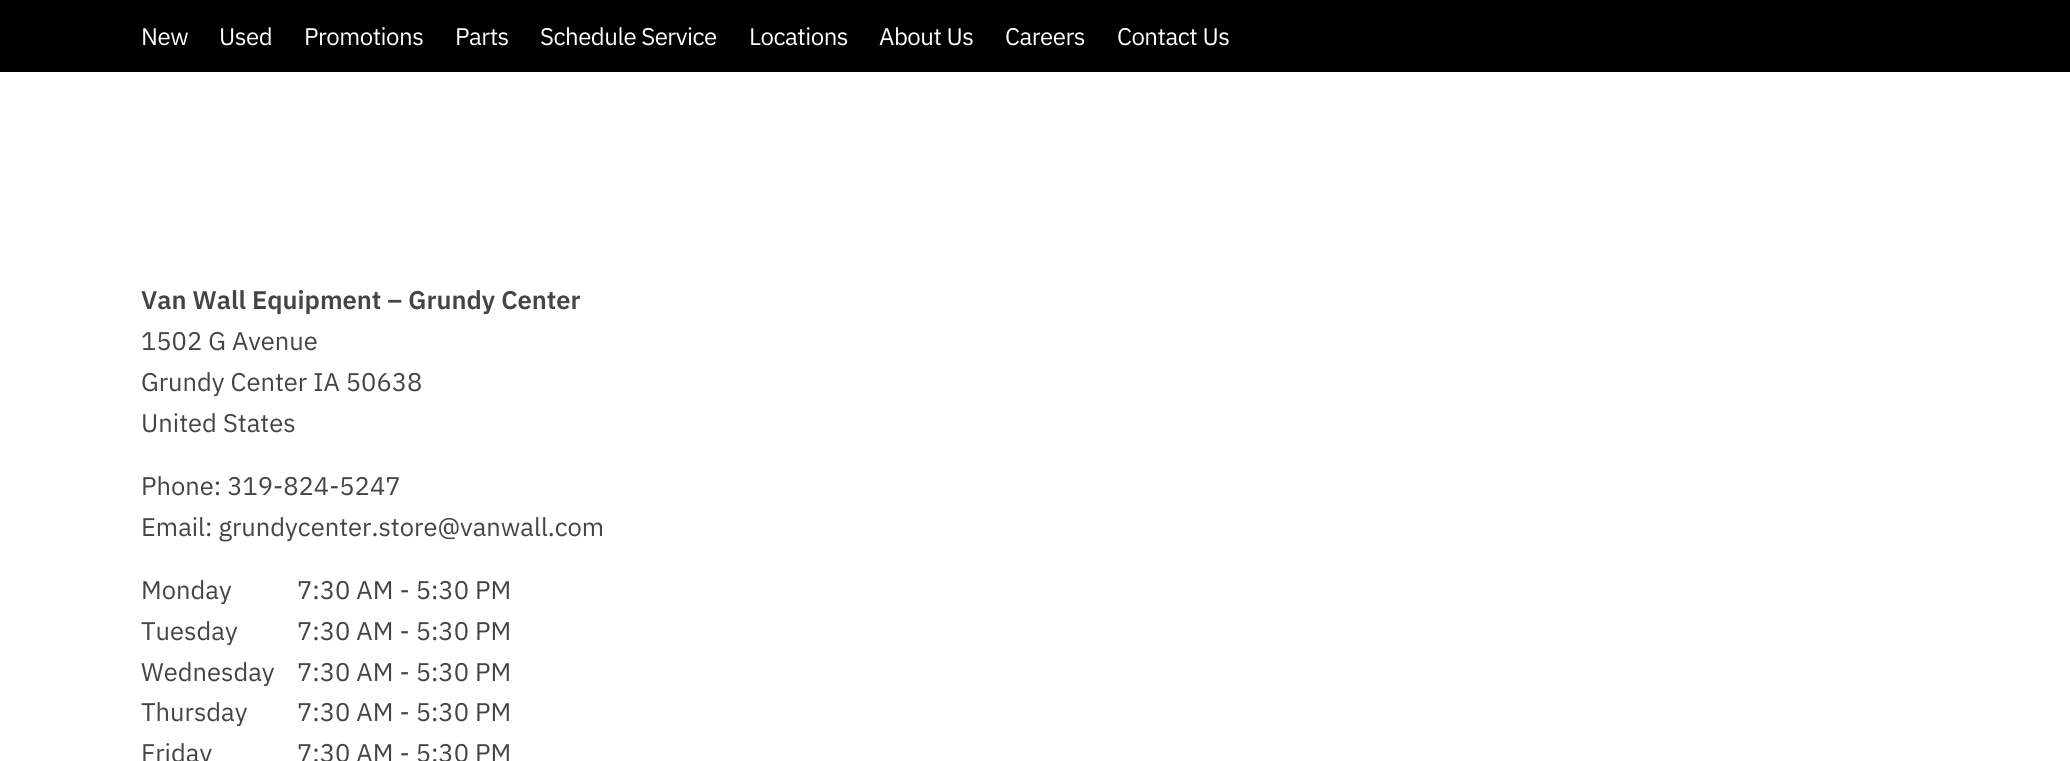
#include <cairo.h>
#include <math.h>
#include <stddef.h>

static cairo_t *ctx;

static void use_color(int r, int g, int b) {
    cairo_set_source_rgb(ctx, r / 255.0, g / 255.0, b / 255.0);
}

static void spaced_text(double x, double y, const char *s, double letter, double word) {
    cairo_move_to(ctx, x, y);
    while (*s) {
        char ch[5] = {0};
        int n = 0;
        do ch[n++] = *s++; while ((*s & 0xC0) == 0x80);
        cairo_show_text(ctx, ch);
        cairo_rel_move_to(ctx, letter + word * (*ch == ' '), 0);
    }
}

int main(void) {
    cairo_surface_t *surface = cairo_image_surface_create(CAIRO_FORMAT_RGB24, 2070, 761);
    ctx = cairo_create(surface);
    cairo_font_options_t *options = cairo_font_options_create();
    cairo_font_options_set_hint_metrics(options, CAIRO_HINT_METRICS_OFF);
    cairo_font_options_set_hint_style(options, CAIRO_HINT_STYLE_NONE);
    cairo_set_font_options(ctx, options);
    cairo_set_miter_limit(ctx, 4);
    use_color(255, 255, 255);
    cairo_paint(ctx);
    use_color(0, 0, 0);
    cairo_rectangle(ctx, 0, 0, 2070, 72);
    cairo_fill(ctx);
    cairo_select_font_face(ctx, "IBM Plex Sans", CAIRO_FONT_SLANT_NORMAL, CAIRO_FONT_WEIGHT_NORMAL);
    cairo_set_font_size(ctx, 24);
    use_color(255, 255, 255);
    spaced_text(141, 45, "New", -0.5, 0);
    spaced_text(219, 45, "Used", -0.5, 0);
    spaced_text(304, 45, "Promotions", -0.5, 0);
    spaced_text(455, 45, "Parts", -0.5, 0);
    spaced_text(540, 45, "Schedule Service", -0.5, 0);
    spaced_text(749, 45, "Locations", -0.5, 0);
    spaced_text(879, 45, "About Us", -0.5, 0);
    spaced_text(1005, 45, "Careers", -0.5, 0);
    spaced_text(1117, 45, "Contact Us", -0.5, 0);
    cairo_select_font_face(ctx, "IBM Plex Sans SemiBold", CAIRO_FONT_SLANT_NORMAL, CAIRO_FONT_WEIGHT_NORMAL);
    cairo_set_font_size(ctx, 25.5);
    use_color(68, 68, 68);
    cairo_move_to(ctx, 141, 309);
    cairo_show_text(ctx, "Van Wall Equipment – Grundy Center");
    cairo_select_font_face(ctx, "IBM Plex Sans", CAIRO_FONT_SLANT_NORMAL, CAIRO_FONT_WEIGHT_NORMAL);
    cairo_move_to(ctx, 141, 350);
    cairo_show_text(ctx, "1502 G Avenue");
    cairo_move_to(ctx, 141, 391);
    cairo_show_text(ctx, "Grundy Center IA 50638");
    cairo_move_to(ctx, 141, 432);
    cairo_show_text(ctx, "United States");
    cairo_move_to(ctx, 141, 495);
    cairo_show_text(ctx, "Phone: 319-824-5247");
    cairo_move_to(ctx, 141, 536);
    cairo_show_text(ctx, "Email: grundycenter.store@vanwall.com");
    cairo_move_to(ctx, 141, 599);
    cairo_show_text(ctx, "Monday");
    cairo_move_to(ctx, 297, 599);
    cairo_show_text(ctx, "7:30 AM - 5:30 PM");
    cairo_move_to(ctx, 141, 640);
    cairo_show_text(ctx, "Tuesday");
    cairo_move_to(ctx, 297, 640);
    cairo_show_text(ctx, "7:30 AM - 5:30 PM");
    cairo_move_to(ctx, 141, 681);
    cairo_show_text(ctx, "Wednesday");
    cairo_move_to(ctx, 297, 681);
    cairo_show_text(ctx, "7:30 AM - 5:30 PM");
    cairo_move_to(ctx, 141, 721);
    cairo_show_text(ctx, "Thursday");
    cairo_move_to(ctx, 297, 721);
    cairo_show_text(ctx, "7:30 AM - 5:30 PM");
    cairo_move_to(ctx, 141, 762);
    cairo_show_text(ctx, "Friday");
    cairo_move_to(ctx, 297, 762);
    cairo_show_text(ctx, "7:30 AM - 5:30 PM");
    cairo_surface_write_to_png(surface, "result.png");
    cairo_font_options_destroy(options);
    cairo_destroy(ctx);
    cairo_surface_destroy(surface);
    return 0;
}
